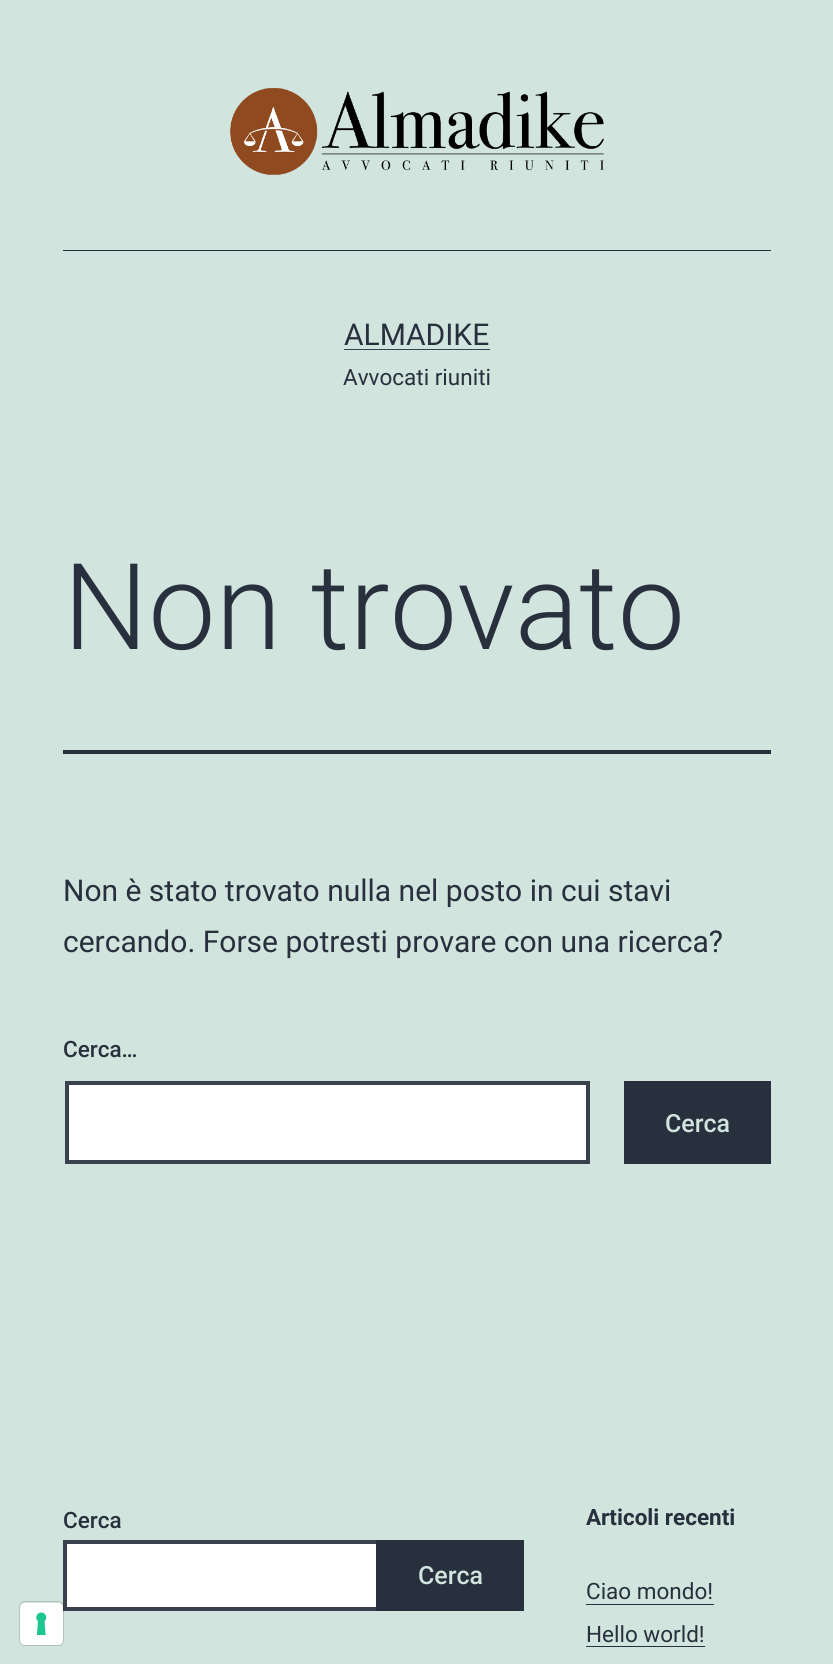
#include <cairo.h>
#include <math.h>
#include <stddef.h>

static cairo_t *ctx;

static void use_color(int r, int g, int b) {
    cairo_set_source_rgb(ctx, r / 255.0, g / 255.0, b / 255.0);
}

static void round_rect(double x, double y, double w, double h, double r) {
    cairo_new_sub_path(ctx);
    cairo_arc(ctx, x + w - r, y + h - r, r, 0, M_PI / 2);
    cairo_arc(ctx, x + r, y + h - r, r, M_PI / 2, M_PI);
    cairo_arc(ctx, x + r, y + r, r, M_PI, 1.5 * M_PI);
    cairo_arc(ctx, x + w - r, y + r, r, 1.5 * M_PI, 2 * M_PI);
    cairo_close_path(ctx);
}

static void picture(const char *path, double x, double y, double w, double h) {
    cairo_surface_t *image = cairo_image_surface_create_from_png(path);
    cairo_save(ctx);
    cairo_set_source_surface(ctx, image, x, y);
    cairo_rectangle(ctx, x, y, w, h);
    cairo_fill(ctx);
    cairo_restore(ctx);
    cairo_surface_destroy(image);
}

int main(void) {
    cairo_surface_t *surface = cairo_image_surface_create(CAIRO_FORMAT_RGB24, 833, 1664);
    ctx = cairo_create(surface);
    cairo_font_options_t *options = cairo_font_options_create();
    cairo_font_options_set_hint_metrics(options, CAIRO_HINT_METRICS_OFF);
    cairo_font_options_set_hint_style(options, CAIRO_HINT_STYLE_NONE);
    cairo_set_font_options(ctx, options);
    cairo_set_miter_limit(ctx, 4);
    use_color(209, 228, 221);
    cairo_paint(ctx);
    use_color(255, 255, 255);
    cairo_rectangle(ctx, 65, 1542, 313, 67);
    cairo_fill_preserve(ctx);
    use_color(57, 65, 77);
    cairo_set_line_width(ctx, 4);
    cairo_stroke(ctx);
    round_rect(19.5, 1601.5, 44, 44, 5.5);
    cairo_set_source_rgba(ctx, 0, 0, 0, 0.15);
    cairo_set_line_width(ctx, 1);
    cairo_stroke(ctx);
    use_color(255, 255, 255);
    round_rect(20, 1603, 43, 42, 5);
    cairo_fill(ctx);
    picture("img1.png", 36, 1612, 11, 23);
    use_color(40, 48, 61);
    cairo_rectangle(ctx, 63, 250, 708, 1);
    cairo_fill(ctx);
    picture("img2.png", 230, 88, 374, 87);
    cairo_select_font_face(ctx, "Roboto", CAIRO_FONT_SLANT_NORMAL, CAIRO_FONT_WEIGHT_NORMAL);
    cairo_set_font_size(ctx, 30);
    cairo_move_to(ctx, 344, 345);
    cairo_show_text(ctx, "ALMADIKE");
    use_color(57, 65, 77);
    cairo_rectangle(ctx, 344, 349, 146, 1);
    cairo_fill(ctx);
    cairo_set_font_size(ctx, 22.5);
    use_color(40, 48, 61);
    cairo_move_to(ctx, 343, 385);
    cairo_show_text(ctx, "Avvocati riuniti");
    cairo_rectangle(ctx, 63, 750, 708, 4);
    cairo_fill(ctx);
    cairo_select_font_face(ctx, "Roboto Light", CAIRO_FONT_SLANT_NORMAL, CAIRO_FONT_WEIGHT_NORMAL);
    cairo_set_font_size(ctx, 120);
    cairo_move_to(ctx, 63, 649);
    cairo_show_text(ctx, "Non trovato");
    cairo_select_font_face(ctx, "Roboto", CAIRO_FONT_SLANT_NORMAL, CAIRO_FONT_WEIGHT_NORMAL);
    cairo_set_font_size(ctx, 30);
    cairo_move_to(ctx, 63, 901);
    cairo_show_text(ctx, "Non è stato trovato nulla nel posto in cui stavi");
    cairo_move_to(ctx, 63, 952);
    cairo_show_text(ctx, "cercando. Forse potresti provare con una ricerca?");
    cairo_select_font_face(ctx, "Roboto Medium", CAIRO_FONT_SLANT_NORMAL, CAIRO_FONT_WEIGHT_NORMAL);
    cairo_set_font_size(ctx, 22.5);
    cairo_move_to(ctx, 63, 1057);
    cairo_show_text(ctx, "Cerca…");
    use_color(255, 255, 255);
    cairo_rectangle(ctx, 67, 1083, 521, 79);
    cairo_fill_preserve(ctx);
    use_color(57, 65, 77);
    cairo_set_line_width(ctx, 4);
    cairo_stroke(ctx);
    use_color(40, 48, 61);
    cairo_rectangle(ctx, 624, 1081, 147, 83);
    cairo_fill(ctx);
    cairo_set_font_size(ctx, 25);
    use_color(209, 228, 221);
    cairo_move_to(ctx, 665, 1132);
    cairo_show_text(ctx, "Cerca");
    cairo_set_font_size(ctx, 22.5);
    use_color(40, 48, 61);
    cairo_move_to(ctx, 63, 1528);
    cairo_show_text(ctx, "Cerca");
    cairo_rectangle(ctx, 376, 1540, 148, 71);
    cairo_fill(ctx);
    cairo_set_font_size(ctx, 25);
    use_color(209, 228, 221);
    cairo_move_to(ctx, 418, 1584);
    cairo_show_text(ctx, "Cerca");
    cairo_select_font_face(ctx, "Roboto", CAIRO_FONT_SLANT_NORMAL, CAIRO_FONT_WEIGHT_BOLD);
    cairo_set_font_size(ctx, 22.5);
    use_color(40, 48, 61);
    cairo_move_to(ctx, 586, 1525);
    cairo_show_text(ctx, "Articoli recenti");
    cairo_select_font_face(ctx, "Roboto", CAIRO_FONT_SLANT_NORMAL, CAIRO_FONT_WEIGHT_NORMAL);
    cairo_move_to(ctx, 586, 1599);
    cairo_show_text(ctx, "Ciao mondo!");
    cairo_rectangle(ctx, 586, 1604, 128, 1);
    cairo_fill(ctx);
    cairo_move_to(ctx, 586, 1642);
    cairo_show_text(ctx, "Hello world!");
    cairo_rectangle(ctx, 586, 1646, 119, 1);
    cairo_fill(ctx);
    cairo_surface_write_to_png(surface, "result.png");
    cairo_font_options_destroy(options);
    cairo_destroy(ctx);
    cairo_surface_destroy(surface);
    return 0;
}
